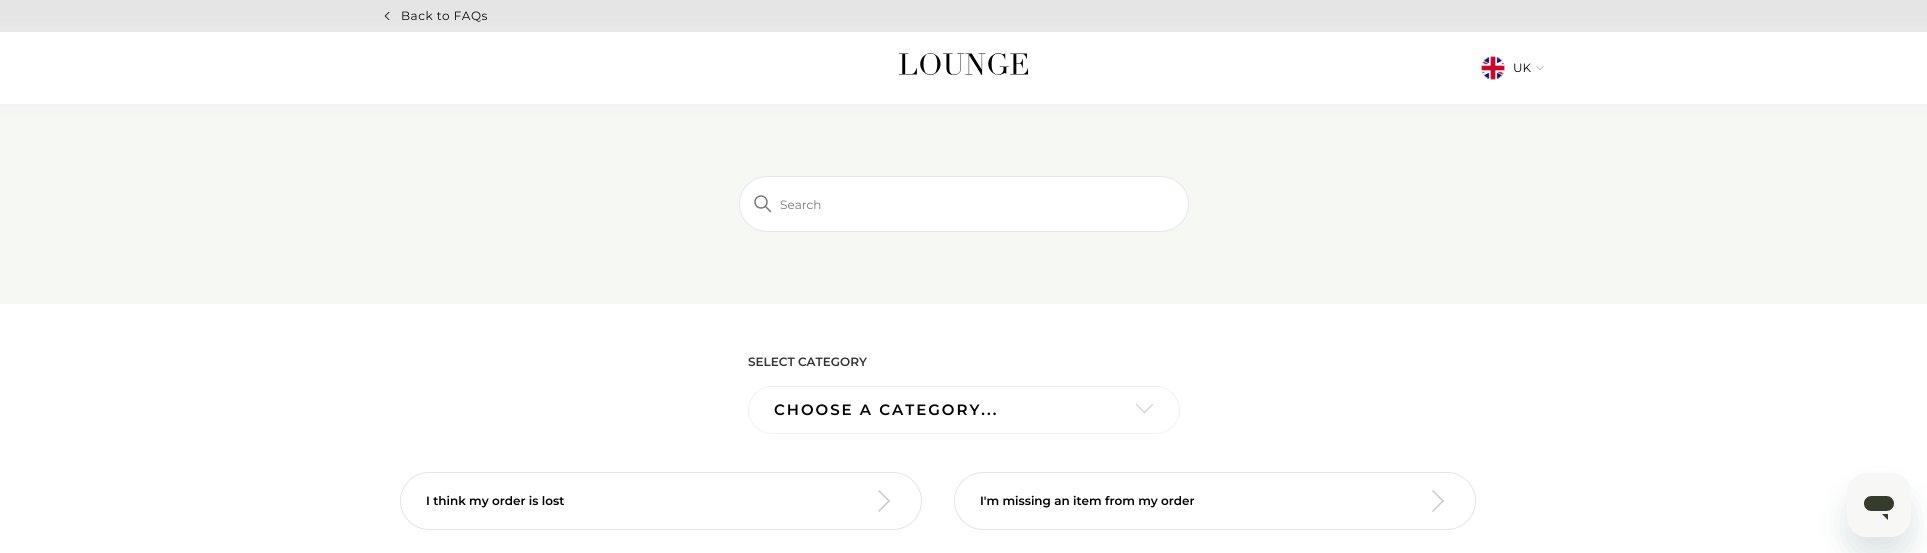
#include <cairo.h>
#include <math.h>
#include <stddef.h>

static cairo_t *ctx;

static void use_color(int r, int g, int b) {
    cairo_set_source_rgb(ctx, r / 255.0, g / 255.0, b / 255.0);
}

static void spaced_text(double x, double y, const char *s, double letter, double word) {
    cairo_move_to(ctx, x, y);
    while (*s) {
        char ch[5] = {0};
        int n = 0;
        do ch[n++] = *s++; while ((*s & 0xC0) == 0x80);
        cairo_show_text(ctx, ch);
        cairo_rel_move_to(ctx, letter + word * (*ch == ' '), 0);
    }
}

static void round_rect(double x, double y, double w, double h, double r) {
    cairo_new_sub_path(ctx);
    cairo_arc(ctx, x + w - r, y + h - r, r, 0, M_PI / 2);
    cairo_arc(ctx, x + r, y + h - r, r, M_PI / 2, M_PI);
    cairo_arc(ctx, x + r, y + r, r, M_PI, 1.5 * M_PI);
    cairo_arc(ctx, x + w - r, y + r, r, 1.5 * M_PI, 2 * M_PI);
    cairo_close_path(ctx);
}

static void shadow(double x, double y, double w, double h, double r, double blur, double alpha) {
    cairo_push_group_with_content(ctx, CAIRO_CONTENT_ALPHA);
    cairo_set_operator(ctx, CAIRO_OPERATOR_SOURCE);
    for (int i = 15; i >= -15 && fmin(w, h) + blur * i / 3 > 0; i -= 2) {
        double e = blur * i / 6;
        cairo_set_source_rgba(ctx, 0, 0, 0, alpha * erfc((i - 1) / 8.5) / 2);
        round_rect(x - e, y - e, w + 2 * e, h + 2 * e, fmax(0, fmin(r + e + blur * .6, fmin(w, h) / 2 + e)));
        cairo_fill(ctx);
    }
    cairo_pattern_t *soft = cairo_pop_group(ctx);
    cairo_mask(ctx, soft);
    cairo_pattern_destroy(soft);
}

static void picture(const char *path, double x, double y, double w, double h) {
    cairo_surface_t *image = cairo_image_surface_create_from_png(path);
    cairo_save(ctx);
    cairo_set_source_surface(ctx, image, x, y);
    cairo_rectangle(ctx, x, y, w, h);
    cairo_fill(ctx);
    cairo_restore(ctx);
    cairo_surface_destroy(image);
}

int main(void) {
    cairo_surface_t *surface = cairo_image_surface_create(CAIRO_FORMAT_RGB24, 1927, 553);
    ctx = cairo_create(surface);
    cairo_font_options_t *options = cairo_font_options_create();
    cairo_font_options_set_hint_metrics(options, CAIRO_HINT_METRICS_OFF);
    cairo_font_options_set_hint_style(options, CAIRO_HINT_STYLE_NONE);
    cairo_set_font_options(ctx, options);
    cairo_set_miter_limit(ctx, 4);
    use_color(255, 255, 255);
    cairo_paint(ctx);
    use_color(229, 229, 229);
    cairo_rectangle(ctx, 0, 0, 1927, 32);
    cairo_fill(ctx);
    picture("img1.png", 384, 12, 6, 8);
    cairo_select_font_face(ctx, "Montserrat", CAIRO_FONT_SLANT_NORMAL, CAIRO_FONT_WEIGHT_NORMAL);
    cairo_set_font_size(ctx, 12);
    use_color(0, 0, 0);
    spaced_text(401, 20, "Back to FAQs", 0.5, 0);
    use_color(246, 248, 244);
    cairo_rectangle(ctx, 0, 104, 1927, 200);
    cairo_fill(ctx);
    cairo_save(ctx);
    cairo_set_fill_rule(ctx, CAIRO_FILL_RULE_EVEN_ODD);
    cairo_new_path(ctx);
    cairo_move_to(ctx, 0, 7);
    cairo_line_to(ctx, 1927, 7);
    cairo_line_to(ctx, 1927, 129);
    cairo_line_to(ctx, 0, 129);
    cairo_close_path(ctx);
    cairo_move_to(ctx, 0, 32);
    cairo_line_to(ctx, 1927, 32);
    cairo_line_to(ctx, 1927, 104);
    cairo_line_to(ctx, 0, 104);
    cairo_close_path(ctx);
    cairo_clip(ctx);
    use_color(238, 238, 238);
    shadow(0, 32, 1927, 72, 0, 8, 1);
    cairo_restore(ctx);
    picture("img2.png", 899, 53, 129, 22);
    picture("img3.png", 1481, 56, 24, 24);
    use_color(0, 0, 0);
    cairo_move_to(ctx, 1513, 72);
    cairo_show_text(ctx, "UK");
    picture("img4.png", 1536, 66, 8, 4);
    use_color(255, 255, 255);
    round_rect(739.5, 176.5, 449, 55, 27.5);
    cairo_fill_preserve(ctx);
    use_color(231, 231, 230);
    cairo_set_line_width(ctx, 1);
    cairo_stroke(ctx);
    picture("img5.png", 754, 195, 18, 18);
    use_color(117, 117, 117);
    cairo_move_to(ctx, 780, 209);
    cairo_show_text(ctx, "Search");
    cairo_select_font_face(ctx, "Montserrat SemiBold", CAIRO_FONT_SLANT_NORMAL, CAIRO_FONT_WEIGHT_NORMAL);
    use_color(51, 51, 51);
    cairo_move_to(ctx, 748, 366);
    cairo_show_text(ctx, "SELECT CATEGORY");
    round_rect(748.5, 386.5, 431, 47, 23.5);
    use_color(240, 240, 240);
    cairo_stroke(ctx);
    cairo_set_font_size(ctx, 15);
    use_color(0, 0, 0);
    spaced_text(774, 415, "CHOOSE A CATEGORY...", 2, 0);
    picture("img6.png", 1135, 403, 19, 11);
    round_rect(400.5, 472.5, 521, 57, 28.5);
    use_color(229, 229, 229);
    cairo_stroke(ctx);
    cairo_set_font_size(ctx, 12);
    use_color(0, 0, 0);
    cairo_move_to(ctx, 426, 505);
    cairo_show_text(ctx, "I think my order is lost");
    picture("img7.png", 878, 490, 12, 22);
    round_rect(954.5, 472.5, 521, 57, 28.5);
    use_color(229, 229, 229);
    cairo_stroke(ctx);
    use_color(0, 0, 0);
    cairo_move_to(ctx, 980, 505);
    cairo_show_text(ctx, "I'm missing an item from my order");
    picture("img7.png", 1432, 490, 12, 22);
    use_color(23, 73, 77);
    shadow(1847, 493, 64, 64, 20, 15, 0.15);
    picture("img8.png", 1847, 473, 64, 64);
    cairo_surface_write_to_png(surface, "result.png");
    cairo_font_options_destroy(options);
    cairo_destroy(ctx);
    cairo_surface_destroy(surface);
    return 0;
}
